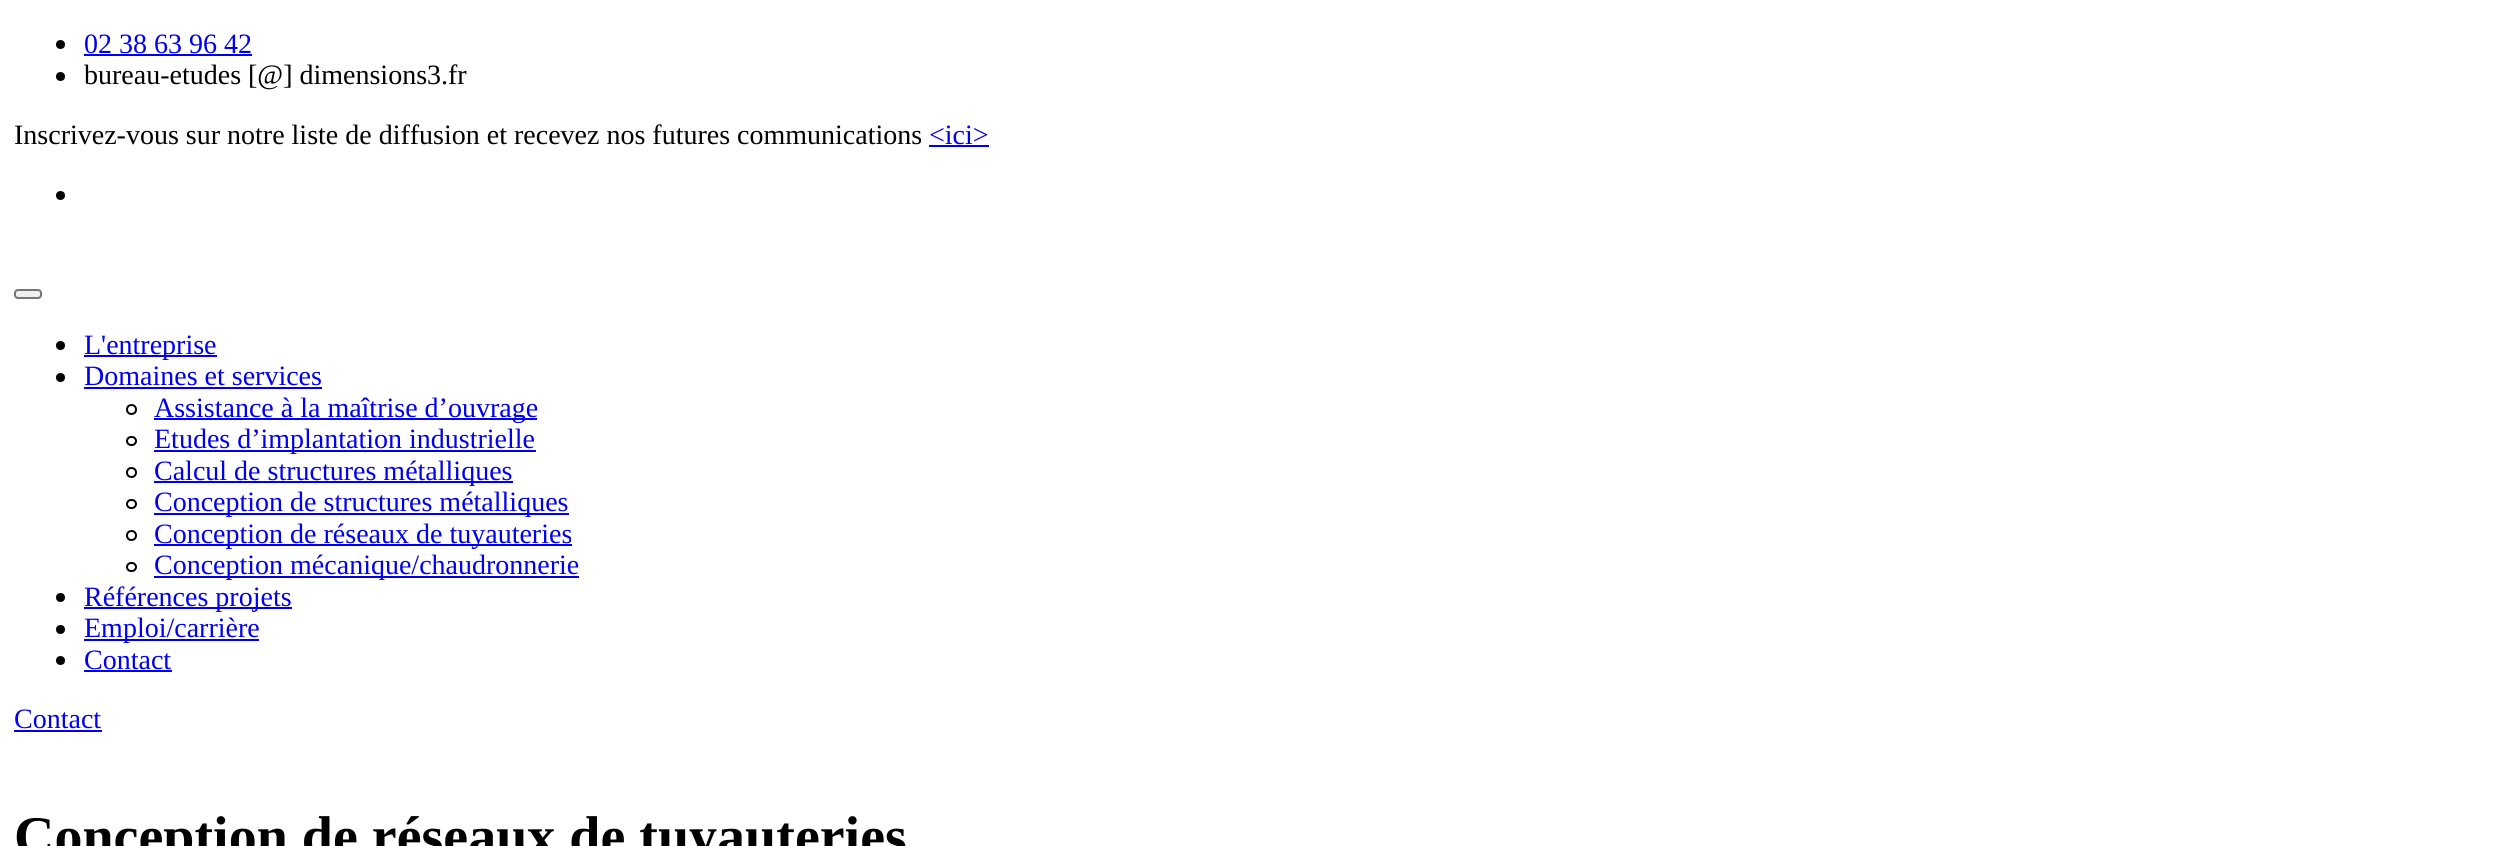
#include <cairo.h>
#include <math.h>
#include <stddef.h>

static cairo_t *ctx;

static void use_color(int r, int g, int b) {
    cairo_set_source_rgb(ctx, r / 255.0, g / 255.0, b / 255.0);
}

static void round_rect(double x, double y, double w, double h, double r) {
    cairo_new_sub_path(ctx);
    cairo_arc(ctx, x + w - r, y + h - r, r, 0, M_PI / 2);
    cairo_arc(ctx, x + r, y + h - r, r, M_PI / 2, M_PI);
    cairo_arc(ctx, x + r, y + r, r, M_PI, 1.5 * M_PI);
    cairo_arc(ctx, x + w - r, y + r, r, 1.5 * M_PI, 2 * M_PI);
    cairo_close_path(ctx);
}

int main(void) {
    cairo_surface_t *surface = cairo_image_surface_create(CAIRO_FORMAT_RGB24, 2496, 846);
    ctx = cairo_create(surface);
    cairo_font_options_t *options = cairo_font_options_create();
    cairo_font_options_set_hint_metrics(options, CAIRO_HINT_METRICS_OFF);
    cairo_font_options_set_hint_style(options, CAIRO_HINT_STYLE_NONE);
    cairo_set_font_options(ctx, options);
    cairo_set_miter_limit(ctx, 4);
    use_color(255, 255, 255);
    cairo_paint(ctx);
    use_color(0, 0, 0);
    cairo_arc(ctx, 60.5, 44.5, 4.5, 0, 2 * M_PI);
    cairo_fill(ctx);
    cairo_select_font_face(ctx, "Liberation Serif", CAIRO_FONT_SLANT_NORMAL, CAIRO_FONT_WEIGHT_NORMAL);
    cairo_set_font_size(ctx, 28);
    use_color(0, 0, 238);
    cairo_move_to(ctx, 84, 53);
    cairo_show_text(ctx, "02 38 63 96 42");
    cairo_rectangle(ctx, 84, 54, 168, 2);
    cairo_fill(ctx);
    use_color(0, 0, 0);
    cairo_arc(ctx, 60.5, 76.5, 4.5, 0, 2 * M_PI);
    cairo_fill(ctx);
    cairo_move_to(ctx, 84, 84);
    cairo_show_text(ctx, "bureau-etudes [@] dimensions3.fr");
    cairo_move_to(ctx, 14, 144);
    cairo_show_text(ctx, "Inscrivez-vous sur notre liste de diffusion et recevez nos futures communications");
    use_color(0, 0, 238);
    cairo_move_to(ctx, 929, 144);
    cairo_show_text(ctx, "<ici>");
    cairo_rectangle(ctx, 929, 145, 60, 2);
    cairo_fill(ctx);
    use_color(0, 0, 0);
    cairo_arc(ctx, 60.5, 195.5, 4.5, 0, 2 * M_PI);
    cairo_fill(ctx);
    use_color(239, 239, 239);
    round_rect(15, 290, 26, 8, 3);
    cairo_fill_preserve(ctx);
    use_color(118, 118, 118);
    cairo_stroke(ctx);
    use_color(0, 0, 0);
    cairo_arc(ctx, 60.5, 345.5, 4.5, 0, 2 * M_PI);
    cairo_fill(ctx);
    use_color(0, 0, 238);
    cairo_rectangle(ctx, 84, 355, 133, 2);
    cairo_fill(ctx);
    cairo_move_to(ctx, 84, 354);
    cairo_show_text(ctx, "L'entreprise");
    use_color(0, 0, 0);
    cairo_new_path(ctx);
    cairo_arc(ctx, 60.5, 377.5, 4.5, 0, 2 * M_PI);
    cairo_fill(ctx);
    use_color(0, 0, 238);
    cairo_move_to(ctx, 84, 385);
    cairo_show_text(ctx, "Domaines et services");
    cairo_rectangle(ctx, 84, 387, 238, 2);
    cairo_fill(ctx);
    cairo_arc(ctx, 131.5, 409.5, 4.5, 0, 2 * M_PI);
    use_color(0, 0, 0);
    cairo_stroke(ctx);
    use_color(0, 0, 238);
    cairo_rectangle(ctx, 154, 418, 383, 2);
    cairo_fill(ctx);
    cairo_move_to(ctx, 154, 417);
    cairo_show_text(ctx, "Assistance à la maîtrise d’ouvrage");
    round_rect(127, 437, 9, 8, 4);
    use_color(0, 0, 0);
    cairo_stroke(ctx);
    use_color(0, 0, 238);
    cairo_rectangle(ctx, 154, 450, 382, 2);
    cairo_fill(ctx);
    cairo_move_to(ctx, 154, 448);
    cairo_show_text(ctx, "Etudes d’implantation industrielle");
    cairo_new_path(ctx);
    cairo_arc(ctx, 131.5, 472.5, 4.5, 0, 2 * M_PI);
    use_color(0, 0, 0);
    cairo_stroke(ctx);
    use_color(0, 0, 238);
    cairo_rectangle(ctx, 154, 481, 359, 2);
    cairo_fill(ctx);
    cairo_move_to(ctx, 154, 480);
    cairo_show_text(ctx, "Calcul de structures métalliques");
    round_rect(127, 500, 9, 8, 4);
    use_color(0, 0, 0);
    cairo_stroke(ctx);
    use_color(0, 0, 238);
    cairo_rectangle(ctx, 154, 513, 415, 2);
    cairo_fill(ctx);
    cairo_move_to(ctx, 154, 511);
    cairo_show_text(ctx, "Conception de structures métalliques");
    cairo_new_path(ctx);
    cairo_arc(ctx, 131.5, 535.5, 4.5, 0, 2 * M_PI);
    use_color(0, 0, 0);
    cairo_stroke(ctx);
    use_color(0, 0, 238);
    cairo_rectangle(ctx, 154, 544, 418, 2);
    cairo_fill(ctx);
    cairo_move_to(ctx, 154, 543);
    cairo_show_text(ctx, "Conception de réseaux de tuyauteries");
    round_rect(127, 563, 9, 8, 4);
    use_color(0, 0, 0);
    cairo_stroke(ctx);
    use_color(0, 0, 238);
    cairo_rectangle(ctx, 154, 576, 425, 2);
    cairo_fill(ctx);
    cairo_move_to(ctx, 154, 574);
    cairo_show_text(ctx, "Conception mécanique/chaudronnerie");
    use_color(0, 0, 0);
    cairo_new_path(ctx);
    cairo_arc(ctx, 60.5, 597.5, 4.5, 0, 2 * M_PI);
    cairo_fill(ctx);
    use_color(0, 0, 238);
    cairo_rectangle(ctx, 84, 607, 208, 2);
    cairo_fill(ctx);
    cairo_move_to(ctx, 84, 606);
    cairo_show_text(ctx, "Références projets");
    use_color(0, 0, 0);
    cairo_new_path(ctx);
    cairo_arc(ctx, 60.5, 629.5, 4.5, 0, 2 * M_PI);
    cairo_fill(ctx);
    use_color(0, 0, 238);
    cairo_rectangle(ctx, 84, 639, 175, 2);
    cairo_fill(ctx);
    cairo_move_to(ctx, 84, 637);
    cairo_show_text(ctx, "Emploi/carrière");
    use_color(0, 0, 0);
    cairo_new_path(ctx);
    cairo_arc(ctx, 60.5, 660.5, 4.5, 0, 2 * M_PI);
    cairo_fill(ctx);
    use_color(0, 0, 238);
    cairo_move_to(ctx, 84, 669);
    cairo_show_text(ctx, "Contact");
    cairo_rectangle(ctx, 84, 670, 88, 2);
    cairo_fill(ctx);
    cairo_move_to(ctx, 14, 728);
    cairo_show_text(ctx, "Contact");
    cairo_rectangle(ctx, 14, 730, 88, 2);
    cairo_fill(ctx);
    cairo_select_font_face(ctx, "Liberation Serif", CAIRO_FONT_SLANT_NORMAL, CAIRO_FONT_WEIGHT_BOLD);
    cairo_set_font_size(ctx, 56);
    use_color(0, 0, 0);
    cairo_move_to(ctx, 14, 855);
    cairo_show_text(ctx, "Conception de réseaux de tuyauteries");
    cairo_surface_write_to_png(surface, "result.png");
    cairo_font_options_destroy(options);
    cairo_destroy(ctx);
    cairo_surface_destroy(surface);
    return 0;
}
